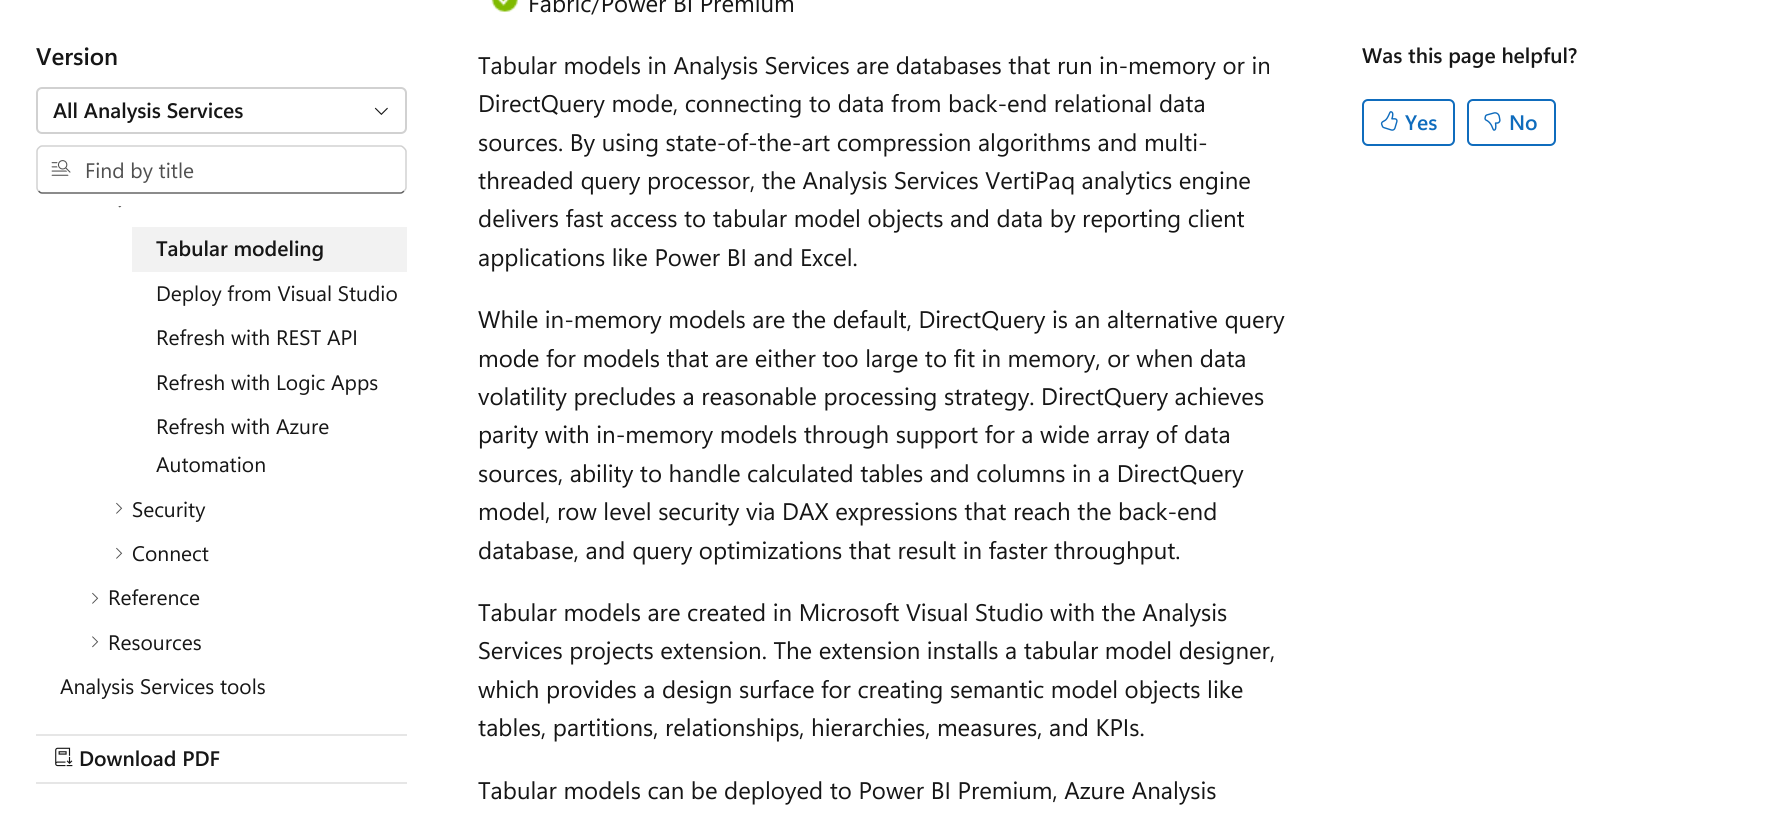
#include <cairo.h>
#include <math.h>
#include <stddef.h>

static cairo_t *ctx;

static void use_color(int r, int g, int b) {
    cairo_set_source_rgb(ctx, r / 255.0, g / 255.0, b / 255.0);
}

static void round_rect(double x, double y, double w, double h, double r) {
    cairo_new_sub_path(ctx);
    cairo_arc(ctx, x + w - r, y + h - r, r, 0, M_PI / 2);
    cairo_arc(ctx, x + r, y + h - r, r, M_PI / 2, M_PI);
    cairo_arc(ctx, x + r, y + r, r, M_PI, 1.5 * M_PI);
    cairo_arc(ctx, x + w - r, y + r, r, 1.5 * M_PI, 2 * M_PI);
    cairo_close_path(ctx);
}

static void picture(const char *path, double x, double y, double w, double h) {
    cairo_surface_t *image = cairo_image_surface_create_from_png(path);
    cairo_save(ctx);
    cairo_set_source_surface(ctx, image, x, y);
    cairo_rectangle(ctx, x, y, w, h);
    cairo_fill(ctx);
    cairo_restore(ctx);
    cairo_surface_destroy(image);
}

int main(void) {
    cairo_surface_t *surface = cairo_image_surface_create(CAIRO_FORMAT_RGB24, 1768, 820);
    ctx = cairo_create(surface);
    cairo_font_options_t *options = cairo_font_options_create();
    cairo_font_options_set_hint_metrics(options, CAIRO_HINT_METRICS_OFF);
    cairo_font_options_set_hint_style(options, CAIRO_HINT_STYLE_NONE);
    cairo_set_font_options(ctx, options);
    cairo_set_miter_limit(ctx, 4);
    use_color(255, 255, 255);
    cairo_paint(ctx);
    cairo_select_font_face(ctx, "Segoe UI SemiBold", CAIRO_FONT_SLANT_NORMAL, CAIRO_FONT_WEIGHT_NORMAL);
    cairo_set_font_size(ctx, 24);
    use_color(22, 22, 22);
    cairo_move_to(ctx, 36, 65);
    cairo_show_text(ctx, "Version");
    round_rect(37, 88, 369, 45, 5);
    use_color(209, 209, 209);
    cairo_stroke(ctx);
    cairo_set_font_size(ctx, 21);
    use_color(22, 22, 22);
    cairo_move_to(ctx, 53, 118);
    cairo_show_text(ctx, "All Analysis Services");
    picture("img1.png", 374, 107, 14, 8);
    cairo_new_path(ctx);
    cairo_move_to(ctx, 404, 191);
    cairo_curve_to(ctx, 403, 192, 402, 193, 400.5, 193);
    cairo_line_to(ctx, 42, 193);
    cairo_curve_to(ctx, 40.5, 193, 39.5, 192, 38.5, 191);
    use_color(97, 97, 97);
    cairo_set_line_width(ctx, 1.5);
    cairo_stroke(ctx);
    cairo_new_path(ctx);
    cairo_move_to(ctx, 38.5, 191);
    cairo_curve_to(ctx, 37.5, 190, 37, 189, 37, 187.5);
    cairo_line_to(ctx, 37, 151.5);
    cairo_curve_to(ctx, 37, 150, 37.5, 149, 38.5, 148);
    cairo_curve_to(ctx, 39.5, 147, 40.5, 146, 42, 146);
    cairo_line_to(ctx, 400.5, 146);
    cairo_curve_to(ctx, 402, 146, 403, 147, 404, 148);
    cairo_curve_to(ctx, 405, 149, 406, 150, 406, 151.5);
    cairo_line_to(ctx, 406, 187.5);
    cairo_curve_to(ctx, 406, 189, 405, 190, 404, 191);
    use_color(209, 209, 209);
    cairo_stroke(ctx);
    picture("img2.png", 51, 160, 20, 16);
    cairo_select_font_face(ctx, "Segoe UI", CAIRO_FONT_SLANT_NORMAL, CAIRO_FONT_WEIGHT_NORMAL);
    use_color(80, 80, 80);
    cairo_move_to(ctx, 85, 178);
    cairo_show_text(ctx, "Find by title");
    picture("img3.png", 118, 206, 4, 2);
    use_color(242, 242, 242);
    cairo_rectangle(ctx, 132, 227, 275, 45);
    cairo_fill(ctx);
    cairo_select_font_face(ctx, "Segoe UI SemiBold", CAIRO_FONT_SLANT_NORMAL, CAIRO_FONT_WEIGHT_NORMAL);
    use_color(22, 22, 22);
    cairo_move_to(ctx, 156, 256);
    cairo_show_text(ctx, "Tabular modeling");
    cairo_select_font_face(ctx, "Segoe UI", CAIRO_FONT_SLANT_NORMAL, CAIRO_FONT_WEIGHT_NORMAL);
    cairo_move_to(ctx, 156, 301);
    cairo_show_text(ctx, "Deploy from Visual Studio");
    cairo_move_to(ctx, 156, 345);
    cairo_show_text(ctx, "Refresh with REST API");
    cairo_move_to(ctx, 156, 390);
    cairo_show_text(ctx, "Refresh with Logic Apps");
    cairo_move_to(ctx, 156, 434);
    cairo_show_text(ctx, "Refresh with Azure");
    cairo_move_to(ctx, 156, 472);
    cairo_show_text(ctx, "Automation");
    picture("img4.png", 116, 502, 7, 12);
    cairo_move_to(ctx, 132, 517);
    cairo_show_text(ctx, "Security");
    picture("img4.png", 116, 547, 7, 12);
    cairo_move_to(ctx, 132, 561);
    cairo_show_text(ctx, "Connect");
    picture("img4.png", 92, 592, 7, 12);
    cairo_move_to(ctx, 108, 605);
    cairo_show_text(ctx, "Reference");
    picture("img5.png", 92, 636, 7, 12);
    cairo_move_to(ctx, 108, 650);
    cairo_show_text(ctx, "Resources");
    cairo_move_to(ctx, 60, 694);
    cairo_show_text(ctx, "Analysis Services tools");
    use_color(230, 230, 230);
    cairo_rectangle(ctx, 36, 734, 371, 2);
    cairo_fill(ctx);
    cairo_rectangle(ctx, 36, 782, 371, 2);
    cairo_fill(ctx);
    picture("img6.png", 55, 747, 18, 20);
    cairo_select_font_face(ctx, "Segoe UI SemiBold", CAIRO_FONT_SLANT_NORMAL, CAIRO_FONT_WEIGHT_NORMAL);
    use_color(22, 22, 22);
    cairo_move_to(ctx, 79, 766);
    cairo_show_text(ctx, "Download PDF");
    picture("img7.png", 491, 0, 27, 12);
    cairo_select_font_face(ctx, "Segoe UI", CAIRO_FONT_SLANT_NORMAL, CAIRO_FONT_WEIGHT_NORMAL);
    cairo_set_font_size(ctx, 24);
    cairo_move_to(ctx, 528, 12);
    cairo_show_text(ctx, "Fabric/Power BI Premium");
    cairo_move_to(ctx, 478, 74);
    cairo_show_text(ctx, "Tabular models in Analysis Services are databases that run in-memory or in");
    cairo_move_to(ctx, 478, 112);
    cairo_show_text(ctx, "DirectQuery mode, connecting to data from back-end relational data");
    cairo_move_to(ctx, 478, 151);
    cairo_show_text(ctx, "sources. By using state-of-the-art compression algorithms and multi-");
    cairo_move_to(ctx, 478, 189);
    cairo_show_text(ctx, "threaded query processor, the Analysis Services VertiPaq analytics engine");
    cairo_move_to(ctx, 478, 227);
    cairo_show_text(ctx, "delivers fast access to tabular model objects and data by reporting client");
    cairo_move_to(ctx, 478, 266);
    cairo_show_text(ctx, "applications like Power BI and Excel.");
    cairo_move_to(ctx, 478, 328);
    cairo_show_text(ctx, "While in-memory models are the default, DirectQuery is an alternative query");
    cairo_move_to(ctx, 478, 367);
    cairo_show_text(ctx, "mode for models that are either too large to fit in memory, or when data");
    cairo_move_to(ctx, 478, 405);
    cairo_show_text(ctx, "volatility precludes a reasonable processing strategy. DirectQuery achieves");
    cairo_move_to(ctx, 478, 443);
    cairo_show_text(ctx, "parity with in-memory models through support for a wide array of data");
    cairo_move_to(ctx, 478, 482);
    cairo_show_text(ctx, "sources, ability to handle calculated tables and columns in a DirectQuery");
    cairo_move_to(ctx, 478, 520);
    cairo_show_text(ctx, "model, row level security via DAX expressions that reach the back-end");
    cairo_move_to(ctx, 478, 559);
    cairo_show_text(ctx, "database, and query optimizations that result in faster throughput.");
    cairo_move_to(ctx, 478, 621);
    cairo_show_text(ctx, "Tabular models are created in Microsoft Visual Studio with the Analysis");
    cairo_move_to(ctx, 478, 659);
    cairo_show_text(ctx, "Services projects extension. The extension installs a tabular model designer,");
    cairo_move_to(ctx, 478, 698);
    cairo_show_text(ctx, "which provides a design surface for creating semantic model objects like");
    cairo_move_to(ctx, 478, 736);
    cairo_show_text(ctx, "tables, partitions, relationships, hierarchies, measures, and KPIs.");
    cairo_move_to(ctx, 478, 799);
    cairo_show_text(ctx, "Tabular models can be deployed to Power BI Premium, Azure Analysis");
    cairo_select_font_face(ctx, "Segoe UI SemiBold", CAIRO_FONT_SLANT_NORMAL, CAIRO_FONT_WEIGHT_NORMAL);
    cairo_set_font_size(ctx, 21);
    cairo_move_to(ctx, 1362, 63);
    cairo_show_text(ctx, "Was this page helpful?");
    round_rect(1363, 100, 91, 45, 5);
    use_color(15, 108, 189);
    cairo_set_line_width(ctx, 2);
    cairo_stroke(ctx);
    picture("img8.png", 1380, 111, 18, 20);
    cairo_move_to(ctx, 1405, 130);
    cairo_show_text(ctx, "Yes");
    round_rect(1468, 100, 87, 45, 5);
    cairo_stroke(ctx);
    picture("img9.png", 1484, 112, 17, 19);
    cairo_move_to(ctx, 1509, 130);
    cairo_show_text(ctx, "No");
    cairo_surface_write_to_png(surface, "result.png");
    cairo_font_options_destroy(options);
    cairo_destroy(ctx);
    cairo_surface_destroy(surface);
    return 0;
}
